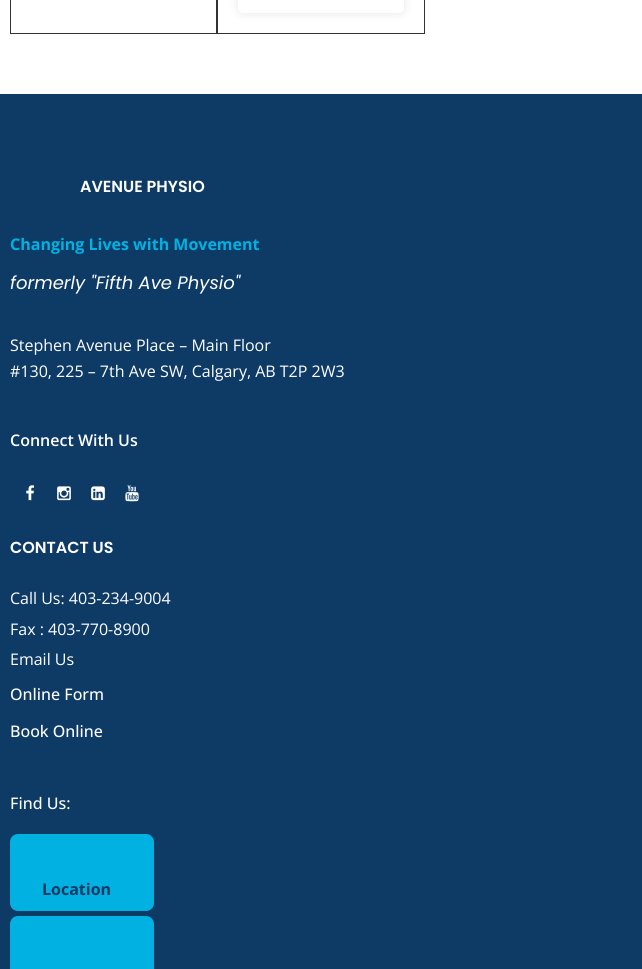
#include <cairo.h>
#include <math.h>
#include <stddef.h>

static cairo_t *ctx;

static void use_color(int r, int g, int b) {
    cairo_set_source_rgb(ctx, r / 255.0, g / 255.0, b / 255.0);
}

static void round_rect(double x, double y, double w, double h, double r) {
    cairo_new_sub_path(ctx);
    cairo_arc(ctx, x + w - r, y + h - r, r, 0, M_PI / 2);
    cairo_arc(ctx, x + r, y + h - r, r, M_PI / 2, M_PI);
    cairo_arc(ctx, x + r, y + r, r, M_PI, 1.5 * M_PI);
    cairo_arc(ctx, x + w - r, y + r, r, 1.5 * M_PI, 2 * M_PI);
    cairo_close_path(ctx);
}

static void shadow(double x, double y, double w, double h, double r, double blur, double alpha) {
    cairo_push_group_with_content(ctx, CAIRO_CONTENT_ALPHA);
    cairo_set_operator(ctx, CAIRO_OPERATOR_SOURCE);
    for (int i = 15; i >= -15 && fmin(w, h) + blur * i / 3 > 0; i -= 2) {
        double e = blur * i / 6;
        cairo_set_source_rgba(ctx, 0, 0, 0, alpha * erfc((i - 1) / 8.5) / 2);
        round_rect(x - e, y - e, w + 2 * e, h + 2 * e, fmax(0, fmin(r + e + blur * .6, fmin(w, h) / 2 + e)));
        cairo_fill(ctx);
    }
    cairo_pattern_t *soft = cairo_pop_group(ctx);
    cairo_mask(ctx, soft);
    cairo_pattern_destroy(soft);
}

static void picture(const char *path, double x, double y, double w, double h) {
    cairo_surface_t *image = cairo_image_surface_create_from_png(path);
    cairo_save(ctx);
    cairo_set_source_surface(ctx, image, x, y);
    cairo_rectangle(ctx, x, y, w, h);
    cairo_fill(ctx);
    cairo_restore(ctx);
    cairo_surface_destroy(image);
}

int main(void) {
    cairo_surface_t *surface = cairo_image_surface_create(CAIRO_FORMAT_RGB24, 642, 969);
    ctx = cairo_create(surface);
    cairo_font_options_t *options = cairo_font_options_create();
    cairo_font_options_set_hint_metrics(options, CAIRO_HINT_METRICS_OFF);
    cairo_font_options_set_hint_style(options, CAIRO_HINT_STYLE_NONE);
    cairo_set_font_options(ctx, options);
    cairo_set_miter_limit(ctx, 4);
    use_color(255, 255, 255);
    cairo_paint(ctx);
    cairo_rectangle(ctx, 10.5, -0.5, 206, 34);
    use_color(51, 51, 51);
    cairo_set_line_width(ctx, 1);
    cairo_stroke(ctx);
    cairo_rectangle(ctx, 217.5, -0.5, 207, 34);
    cairo_stroke(ctx);
    use_color(0, 0, 0);
    shadow(238, -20, 166, 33, 5, 5, 0.1);
    use_color(255, 255, 255);
    round_rect(238, -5, 166, 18, 5);
    cairo_fill(ctx);
    use_color(13, 59, 102);
    cairo_rectangle(ctx, 0, 94, 642, 875);
    cairo_fill(ctx);
    cairo_select_font_face(ctx, "Poppins SemiBold", CAIRO_FONT_SLANT_NORMAL, CAIRO_FONT_WEIGHT_NORMAL);
    cairo_set_font_size(ctx, 16);
    use_color(255, 255, 255);
    cairo_move_to(ctx, 80, 192);
    cairo_show_text(ctx, "AVENUE PHYSIO");
    cairo_select_font_face(ctx, "Open Sans", CAIRO_FONT_SLANT_NORMAL, CAIRO_FONT_WEIGHT_BOLD);
    use_color(0, 177, 225);
    cairo_move_to(ctx, 10, 250);
    cairo_show_text(ctx, "Changing Lives with Movement");
    cairo_select_font_face(ctx, "Poppins", CAIRO_FONT_SLANT_ITALIC, CAIRO_FONT_WEIGHT_NORMAL);
    cairo_set_font_size(ctx, 18);
    use_color(255, 255, 255);
    cairo_move_to(ctx, 10, 289);
    cairo_show_text(ctx, "formerly \"Fifth Ave Physio\"");
    cairo_select_font_face(ctx, "Open Sans", CAIRO_FONT_SLANT_NORMAL, CAIRO_FONT_WEIGHT_NORMAL);
    cairo_set_font_size(ctx, 16);
    cairo_move_to(ctx, 10, 351);
    cairo_show_text(ctx, "Stephen Avenue Place – Main Floor");
    cairo_move_to(ctx, 10, 377);
    cairo_show_text(ctx, "#130, 225 – 7th Ave SW, Calgary, AB T2P 2W3");
    cairo_select_font_face(ctx, "Open Sans SemiBold", CAIRO_FONT_SLANT_NORMAL, CAIRO_FONT_WEIGHT_NORMAL);
    cairo_move_to(ctx, 10, 446);
    cairo_show_text(ctx, "Connect With Us");
    picture("img1.png", 26, 485, 8, 16);
    picture("img2.png", 57, 486, 14, 15);
    picture("img3.png", 91, 486, 14, 15);
    picture("img4.png", 125, 485, 14, 17);
    cairo_select_font_face(ctx, "Poppins SemiBold", CAIRO_FONT_SLANT_NORMAL, CAIRO_FONT_WEIGHT_NORMAL);
    cairo_move_to(ctx, 10, 553);
    cairo_show_text(ctx, "CONTACT US");
    cairo_select_font_face(ctx, "Open Sans", CAIRO_FONT_SLANT_NORMAL, CAIRO_FONT_WEIGHT_NORMAL);
    cairo_move_to(ctx, 10, 604);
    cairo_show_text(ctx, "Call Us: 403-234-9004");
    cairo_move_to(ctx, 10, 635);
    cairo_show_text(ctx, "Fax : 403-770-8900");
    cairo_move_to(ctx, 10, 665);
    cairo_show_text(ctx, "Email Us");
    cairo_select_font_face(ctx, "Open Sans Medium", CAIRO_FONT_SLANT_NORMAL, CAIRO_FONT_WEIGHT_NORMAL);
    cairo_move_to(ctx, 10, 700);
    cairo_show_text(ctx, "Online Form");
    cairo_move_to(ctx, 10, 737);
    cairo_show_text(ctx, "Book Online");
    cairo_move_to(ctx, 10, 809);
    cairo_show_text(ctx, "Find Us:");
    use_color(0, 177, 225);
    round_rect(10, 834, 144, 77, 8);
    cairo_fill(ctx);
    cairo_select_font_face(ctx, "Open Sans", CAIRO_FONT_SLANT_NORMAL, CAIRO_FONT_WEIGHT_BOLD);
    use_color(13, 59, 102);
    cairo_move_to(ctx, 42, 895);
    cairo_show_text(ctx, "Location");
    use_color(0, 177, 225);
    round_rect(10, 916, 144, 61, 8);
    cairo_fill(ctx);
    cairo_surface_write_to_png(surface, "result.png");
    cairo_font_options_destroy(options);
    cairo_destroy(ctx);
    cairo_surface_destroy(surface);
    return 0;
}
